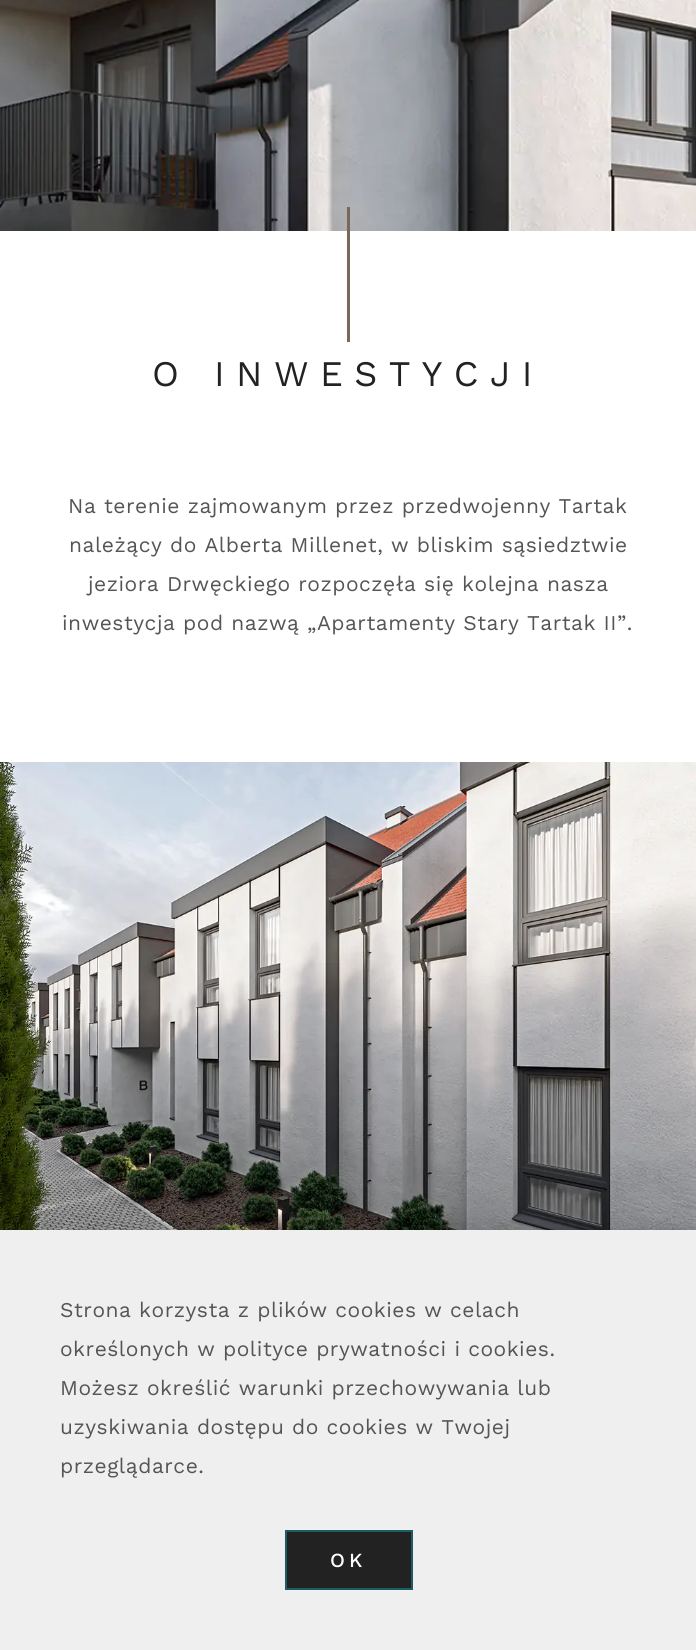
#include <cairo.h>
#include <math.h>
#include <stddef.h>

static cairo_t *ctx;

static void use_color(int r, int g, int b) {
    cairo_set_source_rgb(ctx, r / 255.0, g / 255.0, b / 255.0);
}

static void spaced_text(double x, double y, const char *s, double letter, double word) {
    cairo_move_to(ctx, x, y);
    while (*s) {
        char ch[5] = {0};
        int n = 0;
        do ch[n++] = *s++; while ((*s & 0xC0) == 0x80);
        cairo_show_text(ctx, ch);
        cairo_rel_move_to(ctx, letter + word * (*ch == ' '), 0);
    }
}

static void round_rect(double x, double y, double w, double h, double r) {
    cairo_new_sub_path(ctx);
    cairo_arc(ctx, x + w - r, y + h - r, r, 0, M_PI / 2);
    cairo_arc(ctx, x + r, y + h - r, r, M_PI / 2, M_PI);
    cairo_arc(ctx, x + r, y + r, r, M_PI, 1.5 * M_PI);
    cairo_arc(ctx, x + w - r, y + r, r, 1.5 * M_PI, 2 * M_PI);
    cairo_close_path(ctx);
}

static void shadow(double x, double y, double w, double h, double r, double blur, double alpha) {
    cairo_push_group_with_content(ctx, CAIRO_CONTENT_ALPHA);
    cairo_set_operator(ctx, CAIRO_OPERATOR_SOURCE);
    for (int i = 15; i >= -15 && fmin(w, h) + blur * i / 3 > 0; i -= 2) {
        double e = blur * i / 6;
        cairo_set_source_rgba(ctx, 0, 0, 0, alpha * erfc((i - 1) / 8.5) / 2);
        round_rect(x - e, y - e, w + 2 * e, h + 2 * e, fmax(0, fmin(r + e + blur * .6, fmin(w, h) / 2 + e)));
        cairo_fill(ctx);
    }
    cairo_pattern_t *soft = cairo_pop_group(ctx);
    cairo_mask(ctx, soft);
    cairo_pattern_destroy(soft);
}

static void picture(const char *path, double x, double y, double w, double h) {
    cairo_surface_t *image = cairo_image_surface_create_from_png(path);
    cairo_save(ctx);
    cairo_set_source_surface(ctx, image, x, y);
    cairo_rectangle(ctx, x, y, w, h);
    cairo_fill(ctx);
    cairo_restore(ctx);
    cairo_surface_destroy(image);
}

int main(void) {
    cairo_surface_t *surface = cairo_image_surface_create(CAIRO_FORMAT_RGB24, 696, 1650);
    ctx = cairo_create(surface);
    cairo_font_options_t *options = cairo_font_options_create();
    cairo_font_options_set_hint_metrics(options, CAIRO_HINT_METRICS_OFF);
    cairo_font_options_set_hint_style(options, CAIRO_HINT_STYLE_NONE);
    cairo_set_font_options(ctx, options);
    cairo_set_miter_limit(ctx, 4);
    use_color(255, 255, 255);
    cairo_paint(ctx);
    picture("img1.png", 0, 0, 696, 231);
    use_color(122, 103, 88);
    cairo_rectangle(ctx, 347, 207, 3, 135);
    cairo_fill(ctx);
    cairo_select_font_face(ctx, "Work Sans", CAIRO_FONT_SLANT_NORMAL, CAIRO_FONT_WEIGHT_NORMAL);
    cairo_set_font_size(ctx, 36);
    use_color(34, 34, 34);
    spaced_text(152, 386, "O INWESTYCJI", 11.4, 0);
    cairo_set_font_size(ctx, 21);
    use_color(85, 85, 85);
    spaced_text(68, 513, "Na terenie zajmowanym przez przedwojenny Tartak", 0.52, 0);
    spaced_text(69, 552, "należący do Alberta Millenet, w bliskim sąsiedztwie", 0.52, 0);
    spaced_text(88, 591, "jeziora Drwęckiego rozpoczęła się kolejna nasza", 0.52, 0);
    spaced_text(62, 630, "inwestycja pod nazwą „Apartamenty Stary Tartak II”.", 0.52, 0);
    picture("img2.png", 0, 762, 696, 468);
    use_color(0, 0, 0);
    shadow(0, 1230, 696, 420, 0, 15, 0.15);
    use_color(239, 239, 239);
    cairo_rectangle(ctx, 0, 1230, 696, 420);
    cairo_fill(ctx);
    use_color(85, 85, 85);
    spaced_text(60, 1317, "Strona korzysta z plików cookies w celach", 0.52, 0);
    spaced_text(60, 1356, "określonych w polityce prywatności i cookies.", 0.52, 0);
    spaced_text(60, 1395, "Możesz określić warunki przechowywania lub", 0.52, 0);
    spaced_text(60, 1434, "uzyskiwania dostępu do cookies w Twojej", 0.52, 0);
    spaced_text(60, 1473, "przeglądarce.", 0.52, 0);
    use_color(34, 34, 34);
    cairo_rectangle(ctx, 286, 1531, 126, 58);
    cairo_fill_preserve(ctx);
    use_color(29, 92, 96);
    cairo_stroke(ctx);
    cairo_select_font_face(ctx, "Work Sans Medium", CAIRO_FONT_SLANT_NORMAL, CAIRO_FONT_WEIGHT_NORMAL);
    cairo_set_font_size(ctx, 20);
    use_color(255, 255, 255);
    spaced_text(330, 1567, "OK", 4, 0);
    cairo_surface_write_to_png(surface, "result.png");
    cairo_font_options_destroy(options);
    cairo_destroy(ctx);
    cairo_surface_destroy(surface);
    return 0;
}
